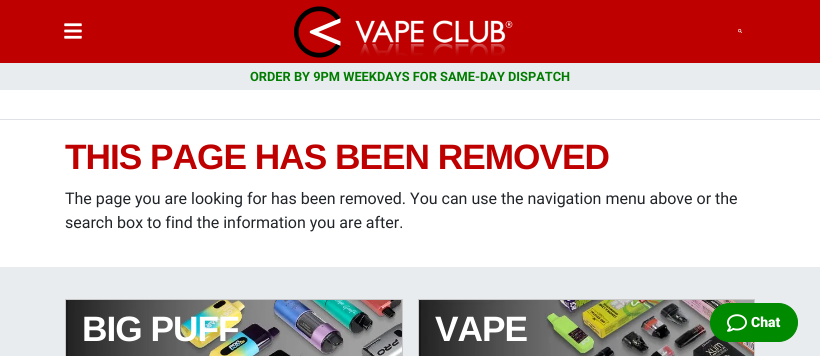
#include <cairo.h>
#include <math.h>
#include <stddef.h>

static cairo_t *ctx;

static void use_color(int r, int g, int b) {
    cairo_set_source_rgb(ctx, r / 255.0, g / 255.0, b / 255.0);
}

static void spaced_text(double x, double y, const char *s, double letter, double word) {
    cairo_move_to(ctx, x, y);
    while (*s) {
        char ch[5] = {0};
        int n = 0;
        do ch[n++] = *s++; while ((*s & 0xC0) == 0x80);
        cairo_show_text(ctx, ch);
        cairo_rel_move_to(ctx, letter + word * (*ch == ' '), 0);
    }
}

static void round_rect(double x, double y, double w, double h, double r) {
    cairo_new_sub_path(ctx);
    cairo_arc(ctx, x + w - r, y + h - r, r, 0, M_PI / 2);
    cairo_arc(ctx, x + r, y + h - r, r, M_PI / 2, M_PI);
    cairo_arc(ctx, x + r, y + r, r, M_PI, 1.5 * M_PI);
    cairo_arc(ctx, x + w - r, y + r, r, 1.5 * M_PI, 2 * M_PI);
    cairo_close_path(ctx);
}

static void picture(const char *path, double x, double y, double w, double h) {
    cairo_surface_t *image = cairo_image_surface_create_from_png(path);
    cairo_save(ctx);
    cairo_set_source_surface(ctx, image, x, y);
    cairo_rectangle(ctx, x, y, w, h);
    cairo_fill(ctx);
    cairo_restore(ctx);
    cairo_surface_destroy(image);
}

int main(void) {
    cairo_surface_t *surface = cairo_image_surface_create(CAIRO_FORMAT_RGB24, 820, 356);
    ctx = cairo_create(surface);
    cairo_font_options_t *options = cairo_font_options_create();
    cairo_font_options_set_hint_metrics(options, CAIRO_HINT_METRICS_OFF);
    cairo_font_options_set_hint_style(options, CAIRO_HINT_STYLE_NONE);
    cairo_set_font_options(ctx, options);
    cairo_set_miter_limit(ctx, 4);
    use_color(255, 255, 255);
    cairo_paint(ctx);
    use_color(190, 0, 0);
    cairo_rectangle(ctx, 0, 0, 820, 63);
    cairo_fill(ctx);
    picture("img1.png", 64, 23, 18, 16);
    picture("img2.png", 294, 6, 219, 52);
    picture("img3.png", 738, 29, 4, 4);
    use_color(233, 236, 239);
    cairo_rectangle(ctx, 0, 63, 820, 27);
    cairo_fill(ctx);
    cairo_select_font_face(ctx, "Roboto", CAIRO_FONT_SLANT_NORMAL, CAIRO_FONT_WEIGHT_BOLD);
    cairo_set_font_size(ctx, 12.8);
    use_color(0, 125, 0);
    cairo_move_to(ctx, 250, 81);
    cairo_show_text(ctx, "ORDER BY 9PM WEEKDAYS FOR SAME-DAY DISPATCH");
    use_color(222, 226, 230);
    cairo_rectangle(ctx, 0, 119, 820, 1);
    cairo_fill(ctx);
    cairo_select_font_face(ctx, "Liberation Sans", CAIRO_FONT_SLANT_NORMAL, CAIRO_FONT_WEIGHT_BOLD);
    cairo_set_font_size(ctx, 35.25);
    use_color(190, 0, 0);
    spaced_text(65, 169, "THIS PAGE HAS BEEN REMOVED", -1, 0);
    cairo_select_font_face(ctx, "Roboto", CAIRO_FONT_SLANT_NORMAL, CAIRO_FONT_WEIGHT_NORMAL);
    cairo_set_font_size(ctx, 16);
    use_color(33, 37, 41);
    cairo_move_to(ctx, 65, 204);
    cairo_show_text(ctx, "The page you are looking for has been removed. You can use the navigation menu above or the");
    cairo_move_to(ctx, 65, 228);
    cairo_show_text(ctx, "search box to find the information you are after.");
    use_color(233, 236, 239);
    cairo_rectangle(ctx, 0, 267, 820, 89);
    cairo_fill(ctx);
    cairo_rectangle(ctx, 65.5, 299.5, 337, 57);
    use_color(200, 200, 200);
    cairo_set_line_width(ctx, 1);
    cairo_stroke(ctx);
    picture("img4.png", 66, 300, 336, 56);
    cairo_select_font_face(ctx, "Liberation Sans", CAIRO_FONT_SLANT_NORMAL, CAIRO_FONT_WEIGHT_BOLD);
    cairo_set_font_size(ctx, 35.25);
    use_color(255, 255, 255);
    spaced_text(82, 341, "BIG PUFF", -1, 0);
    cairo_rectangle(ctx, 418.5, 299.5, 336, 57);
    use_color(200, 200, 200);
    cairo_stroke(ctx);
    picture("img5.png", 419, 300, 335, 56);
    use_color(255, 255, 255);
    spaced_text(435, 341, "VAPE", -1, 0);
    use_color(0, 138, 0);
    round_rect(710.5, 303.5, 87, 38, 19);
    cairo_fill_preserve(ctx);
    cairo_stroke(ctx);
    picture("img6.png", 727, 314, 20, 18);
    cairo_select_font_face(ctx, "Roboto Black", CAIRO_FONT_SLANT_NORMAL, CAIRO_FONT_WEIGHT_NORMAL);
    cairo_set_font_size(ctx, 14);
    use_color(255, 255, 255);
    cairo_move_to(ctx, 751, 327);
    cairo_show_text(ctx, "Chat");
    cairo_surface_write_to_png(surface, "result.png");
    cairo_font_options_destroy(options);
    cairo_destroy(ctx);
    cairo_surface_destroy(surface);
    return 0;
}
